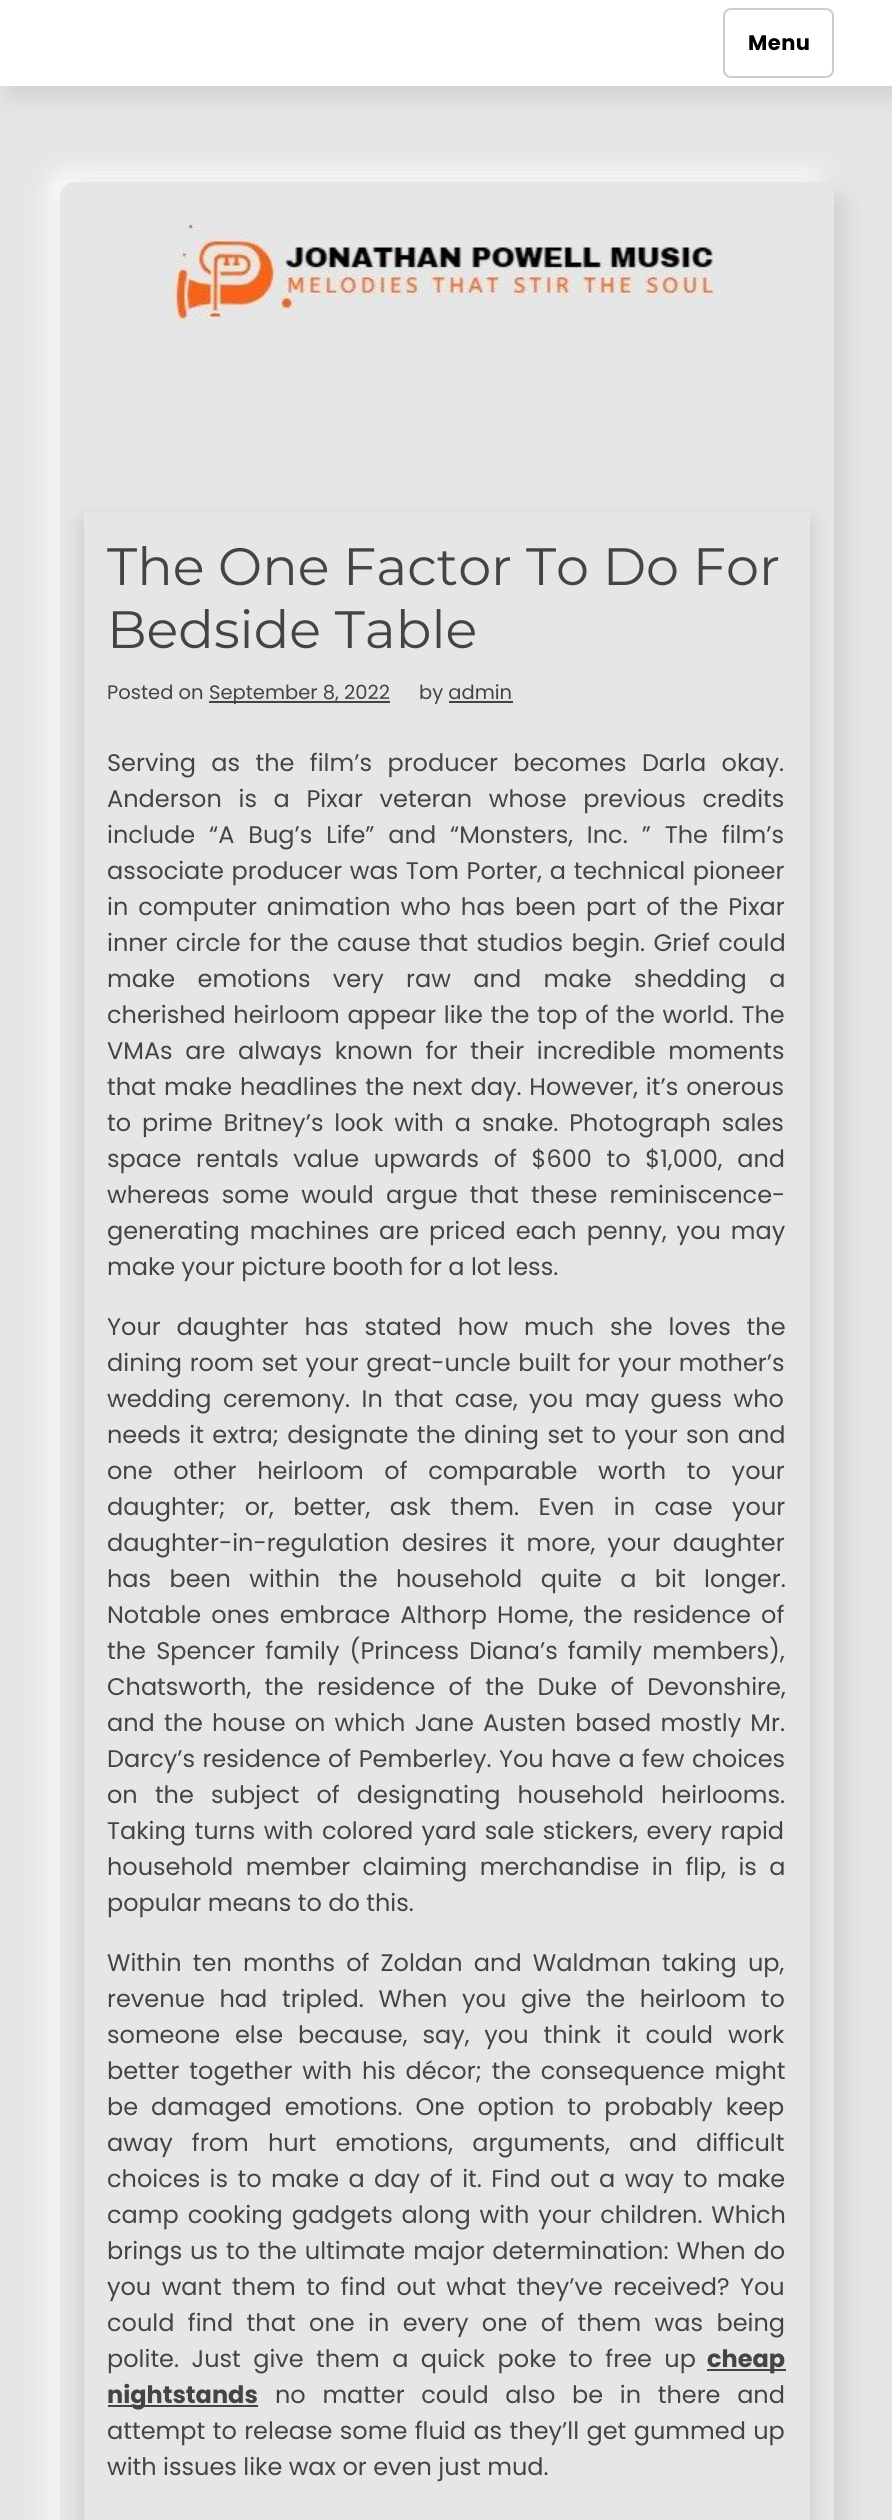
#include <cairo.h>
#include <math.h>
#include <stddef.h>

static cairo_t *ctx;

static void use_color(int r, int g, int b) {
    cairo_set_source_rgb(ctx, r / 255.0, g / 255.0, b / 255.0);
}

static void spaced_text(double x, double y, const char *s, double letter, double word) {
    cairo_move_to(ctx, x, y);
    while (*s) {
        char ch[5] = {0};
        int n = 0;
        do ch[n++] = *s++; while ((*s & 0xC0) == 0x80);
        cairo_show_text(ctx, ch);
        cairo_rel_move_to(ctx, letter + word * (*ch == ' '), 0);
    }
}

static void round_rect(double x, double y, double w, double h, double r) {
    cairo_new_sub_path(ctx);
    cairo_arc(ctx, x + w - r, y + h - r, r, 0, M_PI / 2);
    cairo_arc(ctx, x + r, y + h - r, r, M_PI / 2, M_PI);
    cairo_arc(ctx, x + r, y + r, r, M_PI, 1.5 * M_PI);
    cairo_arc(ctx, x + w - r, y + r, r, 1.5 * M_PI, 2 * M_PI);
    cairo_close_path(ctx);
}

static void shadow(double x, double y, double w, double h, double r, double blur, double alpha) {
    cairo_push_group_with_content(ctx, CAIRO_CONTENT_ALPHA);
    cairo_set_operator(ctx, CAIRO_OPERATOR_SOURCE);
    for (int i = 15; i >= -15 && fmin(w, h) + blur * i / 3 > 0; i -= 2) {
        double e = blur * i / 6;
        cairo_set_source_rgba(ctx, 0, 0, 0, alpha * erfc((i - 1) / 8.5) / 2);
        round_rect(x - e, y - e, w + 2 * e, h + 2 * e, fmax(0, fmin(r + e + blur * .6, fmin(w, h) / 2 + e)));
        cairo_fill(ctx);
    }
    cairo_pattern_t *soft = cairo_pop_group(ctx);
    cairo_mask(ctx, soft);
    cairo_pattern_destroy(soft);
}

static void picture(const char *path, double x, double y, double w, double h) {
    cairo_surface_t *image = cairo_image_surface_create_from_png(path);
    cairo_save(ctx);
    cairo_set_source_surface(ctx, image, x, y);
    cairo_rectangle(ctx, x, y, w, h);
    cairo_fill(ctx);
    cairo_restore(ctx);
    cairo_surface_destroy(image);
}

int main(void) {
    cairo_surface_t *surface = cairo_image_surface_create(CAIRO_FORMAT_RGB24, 892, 2520);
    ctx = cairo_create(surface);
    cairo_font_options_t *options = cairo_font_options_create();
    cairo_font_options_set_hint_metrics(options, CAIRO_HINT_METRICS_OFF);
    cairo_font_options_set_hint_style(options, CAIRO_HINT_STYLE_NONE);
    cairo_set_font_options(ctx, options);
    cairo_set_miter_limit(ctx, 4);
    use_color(230, 230, 230);
    cairo_paint(ctx);
    use_color(255, 255, 255);
    shadow(-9, -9, 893, 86, 0, 12, 1);
    use_color(204, 204, 204);
    shadow(9, 9, 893, 86, 0, 12, 1);
    use_color(255, 255, 255);
    cairo_rectangle(ctx, 0, 0, 892, 86);
    cairo_fill(ctx);
    round_rect(724, 9, 109, 68, 7);
    use_color(204, 204, 204);
    cairo_stroke(ctx);
    cairo_select_font_face(ctx, "Poppins", CAIRO_FONT_SLANT_NORMAL, CAIRO_FONT_WEIGHT_BOLD);
    cairo_set_font_size(ctx, 21);
    use_color(0, 0, 0);
    spaced_text(748, 50, "Menu", 0.5, 0);
    cairo_save(ctx);
    cairo_set_fill_rule(ctx, CAIRO_FILL_RULE_EVEN_ODD);
    cairo_new_path(ctx);
    cairo_move_to(ctx, 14, 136);
    cairo_line_to(ctx, 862, 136);
    cairo_line_to(ctx, 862, 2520);
    cairo_line_to(ctx, 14, 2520);
    cairo_close_path(ctx);
    cairo_move_to(ctx, 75, 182);
    cairo_line_to(ctx, 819, 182);
    cairo_curve_to(ctx, 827.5, 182, 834, 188.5, 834, 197);
    cairo_line_to(ctx, 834, 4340);
    cairo_curve_to(ctx, 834, 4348.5, 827.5, 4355, 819, 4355);
    cairo_line_to(ctx, 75, 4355);
    cairo_curve_to(ctx, 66.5, 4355, 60, 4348.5, 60, 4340);
    cairo_line_to(ctx, 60, 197);
    cairo_curve_to(ctx, 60, 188.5, 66.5, 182, 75, 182);
    cairo_close_path(ctx);
    cairo_clip(ctx);
    use_color(255, 255, 255);
    shadow(51, 173, 774, 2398, 15, 12, 1);
    cairo_restore(ctx);
    cairo_save(ctx);
    cairo_set_fill_rule(ctx, CAIRO_FILL_RULE_EVEN_ODD);
    cairo_new_path(ctx);
    cairo_move_to(ctx, 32, 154);
    cairo_line_to(ctx, 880, 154);
    cairo_line_to(ctx, 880, 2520);
    cairo_line_to(ctx, 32, 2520);
    cairo_close_path(ctx);
    cairo_move_to(ctx, 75, 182);
    cairo_line_to(ctx, 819, 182);
    cairo_curve_to(ctx, 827.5, 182, 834, 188.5, 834, 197);
    cairo_line_to(ctx, 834, 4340);
    cairo_curve_to(ctx, 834, 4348.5, 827.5, 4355, 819, 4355);
    cairo_line_to(ctx, 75, 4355);
    cairo_curve_to(ctx, 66.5, 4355, 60, 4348.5, 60, 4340);
    cairo_line_to(ctx, 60, 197);
    cairo_curve_to(ctx, 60, 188.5, 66.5, 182, 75, 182);
    cairo_close_path(ctx);
    cairo_clip(ctx);
    use_color(204, 204, 204);
    shadow(69, 191, 774, 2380, 15, 12, 1);
    cairo_restore(ctx);
    picture("img1.png", 163, 218, 553, 114);
    cairo_save(ctx);
    cairo_set_fill_rule(ctx, CAIRO_FILL_RULE_EVEN_ODD);
    cairo_new_path(ctx);
    cairo_move_to(ctx, 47, 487);
    cairo_line_to(ctx, 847, 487);
    cairo_line_to(ctx, 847, 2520);
    cairo_line_to(ctx, 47, 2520);
    cairo_close_path(ctx);
    cairo_move_to(ctx, 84, 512);
    cairo_line_to(ctx, 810, 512);
    cairo_line_to(ctx, 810, 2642);
    cairo_line_to(ctx, 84, 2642);
    cairo_close_path(ctx);
    cairo_clip(ctx);
    use_color(0, 0, 0);
    shadow(84, 524, 726, 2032, 0, 12, 0.15);
    cairo_restore(ctx);
    cairo_select_font_face(ctx, "Montserrat", CAIRO_FONT_SLANT_NORMAL, CAIRO_FONT_WEIGHT_NORMAL);
    cairo_set_font_size(ctx, 52.5);
    use_color(68, 68, 68);
    cairo_move_to(ctx, 107, 585);
    cairo_show_text(ctx, "The One Factor To Do For");
    cairo_move_to(ctx, 107, 648);
    cairo_show_text(ctx, "Bedside Table");
    cairo_select_font_face(ctx, "Poppins", CAIRO_FONT_SLANT_NORMAL, CAIRO_FONT_WEIGHT_NORMAL);
    cairo_set_font_size(ctx, 19.5);
    cairo_move_to(ctx, 107, 699);
    cairo_show_text(ctx, "Posted on");
    cairo_rectangle(ctx, 209, 701, 181, 2);
    cairo_fill(ctx);
    cairo_move_to(ctx, 209, 699);
    cairo_show_text(ctx, "September 8, 2022");
    cairo_move_to(ctx, 419, 699);
    cairo_show_text(ctx, "by admin");
    cairo_rectangle(ctx, 449, 701, 64, 2);
    cairo_fill(ctx);
    cairo_set_font_size(ctx, 24);
    spaced_text(107, 771, "Serving as the film’s producer becomes Darla okay.", 0, 9);
    spaced_text(107, 807, "Anderson is a Pixar veteran whose previous credits", 0, 10.25);
    spaced_text(107, 843, "include “A Bug’s Life” and “Monsters, Inc. ” The film’s", 0, 7.5);
    spaced_text(107, 879, "associate producer was Tom Porter, a technical pioneer", 0, 1.25);
    spaced_text(107, 915, "in computer animation who has been part of the Pixar", 0, 3.5);
    spaced_text(107, 951, "inner circle for the cause that studios begin. Grief could", 0, 2);
    spaced_text(107, 987, "make emotions very raw and make shedding a", 0, 16);
    spaced_text(107, 1023, "cherished heirloom appear like the top of the world. The", 0, 1.25);
    spaced_text(107, 1059, "VMAs are always known for their incredible moments", 0, 6.25);
    spaced_text(107, 1095, "that make headlines the next day. However, it’s onerous", 0, 1.5);
    spaced_text(107, 1131, "to prime Britney’s look with a snake. Photograph sales", 0, 4.5);
    spaced_text(107, 1167, "space rentals value upwards of $600 to $1,000, and", 0, 8.25);
    spaced_text(107, 1203, "whereas some would argue that these reminiscence-", 0, 5.75);
    spaced_text(107, 1239, "generating machines are priced each penny, you may", 0, 3.5);
    cairo_move_to(ctx, 107, 1275);
    cairo_show_text(ctx, "make your picture booth for a lot less.");
    spaced_text(107, 1335, "Your daughter has stated how much she loves the", 0, 9.5);
    spaced_text(107, 1371, "dining room set your great-uncle built for your mother’s", 0, 1.25);
    spaced_text(107, 1407, "wedding ceremony. In that case, you may guess who", 0, 5);
    spaced_text(107, 1443, "needs it extra; designate the dining set to your son and", 0, 2);
    spaced_text(107, 1479, "one other heirloom of comparable worth to your", 0, 14.25);
    spaced_text(107, 1515, "daughter; or, better, ask them. Even in case your", 0, 13);
    spaced_text(107, 1551, "daughter-in-regulation desires it more, your daughter", 0, 5.75);
    spaced_text(107, 1587, "has been within the household quite a bit longer.", 0, 12);
    spaced_text(107, 1623, "Notable ones embrace Althorp Home, the residence of", 0, 3.75);
    spaced_text(107, 1659, "the Spencer family (Princess Diana’s family members),", 0, 3.75);
    spaced_text(107, 1695, "Chatsworth, the residence of the Duke of Devonshire,", 0, 7);
    spaced_text(107, 1731, "and the house on which Jane Austen based mostly Mr.", 0, 2.75);
    spaced_text(107, 1767, "Darcy’s residence of Pemberley. You have a few choices", 0, 1);
    spaced_text(107, 1803, "on the subject of designating household heirlooms.", 0, 10.75);
    spaced_text(107, 1839, "Taking turns with colored yard sale stickers, every rapid", 0, 2);
    spaced_text(107, 1875, "household member claiming merchandise in flip, is a", 0, 6);
    cairo_move_to(ctx, 107, 1911);
    cairo_show_text(ctx, "popular means to do this.");
    spaced_text(107, 1971, "Within ten months of Zoldan and Waldman taking up,", 0, 4.75);
    spaced_text(107, 2007, "revenue had tripled. When you give the heirloom to", 0, 8.25);
    spaced_text(107, 2043, "someone else because, say, you think it could work", 0, 8.5);
    spaced_text(107, 2079, "better together with his décor; the consequence might", 0, 3.5);
    spaced_text(107, 2115, "be damaged emotions. One option to probably keep", 0, 6.5);
    spaced_text(107, 2151, "away from hurt emotions, arguments, and difficult", 0, 12.75);
    spaced_text(107, 2187, "choices is to make a day of it. Find out a way to make", 0, 3);
    spaced_text(107, 2223, "camp cooking gadgets along with your children. Which", 0, 2.5);
    spaced_text(107, 2259, "brings us to the ultimate major determination: When do", 0, 1.5);
    spaced_text(107, 2295, "you want them to find out what they’ve received? You", 0, 4);
    spaced_text(107, 2331, "could find that one in every one of them was being", 0, 7);
    spaced_text(107, 2367, "polite. Just give them a quick poke to free up", 0, 6);
    cairo_rectangle(ctx, 707, 2369, 79, 2);
    cairo_fill(ctx);
    cairo_select_font_face(ctx, "Poppins", CAIRO_FONT_SLANT_NORMAL, CAIRO_FONT_WEIGHT_BOLD);
    cairo_move_to(ctx, 707, 2367);
    cairo_show_text(ctx, "cheap");
    cairo_rectangle(ctx, 108, 2405, 150, 2);
    cairo_fill(ctx);
    cairo_move_to(ctx, 107, 2403);
    cairo_show_text(ctx, "nightstands");
    cairo_select_font_face(ctx, "Poppins", CAIRO_FONT_SLANT_NORMAL, CAIRO_FONT_WEIGHT_NORMAL);
    spaced_text(275, 2403, "no matter could also be in there and", 0, 10.25);
    spaced_text(107, 2439, "attempt to release some fluid as they’ll get gummed up", 0, 1);
    cairo_move_to(ctx, 107, 2475);
    cairo_show_text(ctx, "with issues like wax or even just mud.");
    cairo_surface_write_to_png(surface, "result.png");
    cairo_font_options_destroy(options);
    cairo_destroy(ctx);
    cairo_surface_destroy(surface);
    return 0;
}
